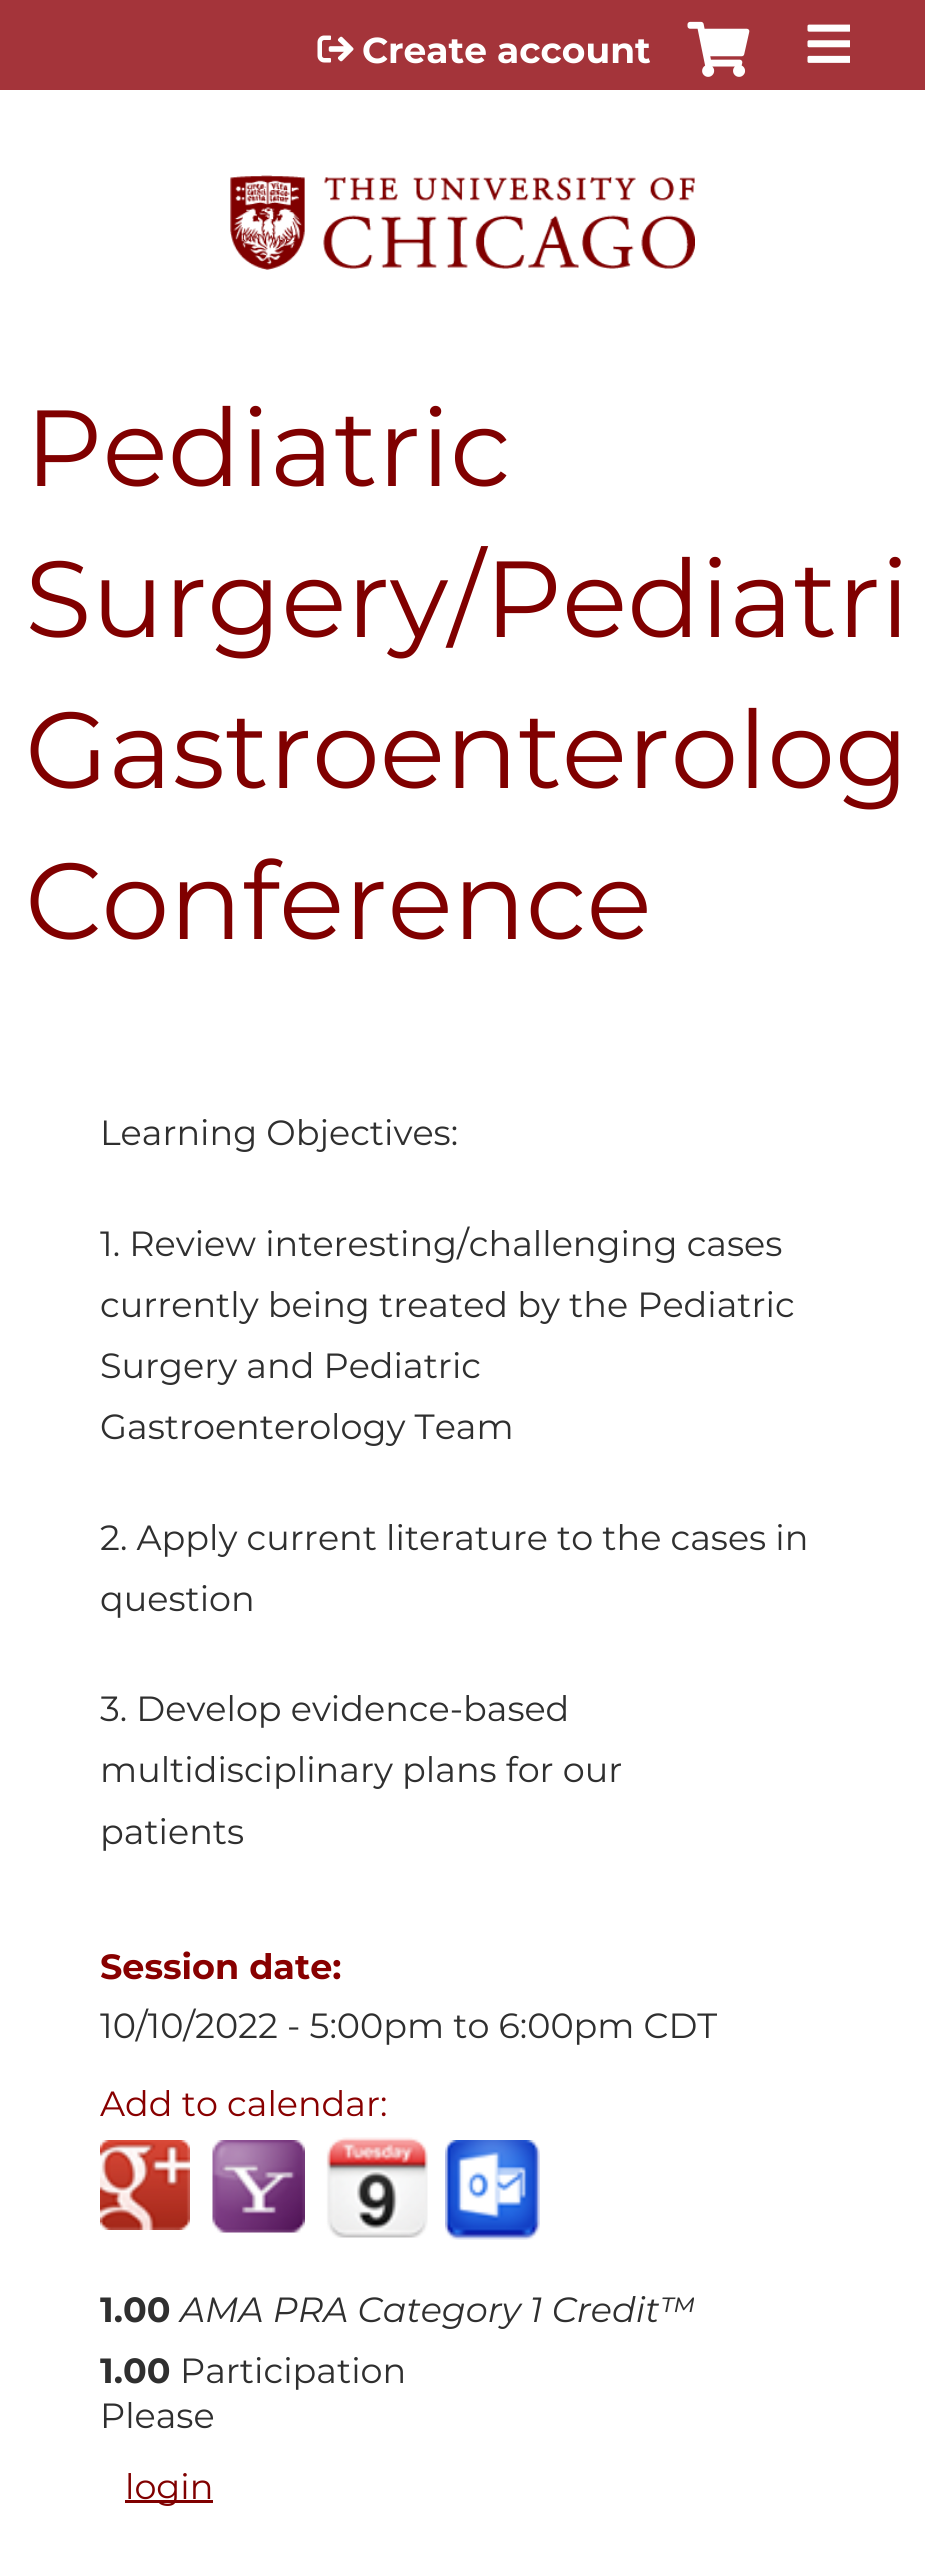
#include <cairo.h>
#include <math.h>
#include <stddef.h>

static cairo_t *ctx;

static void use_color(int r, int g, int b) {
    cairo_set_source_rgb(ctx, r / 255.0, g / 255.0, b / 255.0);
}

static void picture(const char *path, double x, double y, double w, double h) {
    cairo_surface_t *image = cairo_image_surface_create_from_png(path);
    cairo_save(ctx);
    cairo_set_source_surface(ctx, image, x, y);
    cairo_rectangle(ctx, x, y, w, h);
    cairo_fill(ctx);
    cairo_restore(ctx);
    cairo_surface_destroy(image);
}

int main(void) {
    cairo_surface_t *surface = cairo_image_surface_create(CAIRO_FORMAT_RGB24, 925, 2558);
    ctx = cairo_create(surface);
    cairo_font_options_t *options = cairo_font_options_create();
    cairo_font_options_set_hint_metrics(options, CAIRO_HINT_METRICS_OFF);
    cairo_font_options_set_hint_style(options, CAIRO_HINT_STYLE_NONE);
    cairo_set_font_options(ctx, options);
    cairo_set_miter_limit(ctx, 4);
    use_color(255, 255, 255);
    cairo_paint(ctx);
    use_color(164, 52, 58);
    cairo_rectangle(ctx, 0, 0, 925, 90);
    cairo_fill(ctx);
    picture("img1.png", 317, 35, 37, 28);
    cairo_select_font_face(ctx, "Montserrat", CAIRO_FONT_SLANT_NORMAL, CAIRO_FONT_WEIGHT_BOLD);
    cairo_set_font_size(ctx, 36);
    use_color(255, 255, 255);
    cairo_move_to(ctx, 362, 63);
    cairo_show_text(ctx, "Create account");
    picture("img2.png", 687, 21, 63, 56);
    picture("img3.png", 807, 24, 43, 39);
    picture("img4.png", 230, 175, 465, 95);
    cairo_select_font_face(ctx, "Montserrat", CAIRO_FONT_SLANT_NORMAL, CAIRO_FONT_WEIGHT_NORMAL);
    cairo_set_font_size(ctx, 108);
    use_color(128, 0, 0);
    cairo_move_to(ctx, 25, 486);
    cairo_show_text(ctx, "Pediatric");
    cairo_move_to(ctx, 25, 637);
    cairo_show_text(ctx, "Surgery/Pediatri");
    cairo_move_to(ctx, 25, 788);
    cairo_show_text(ctx, "Gastroenterolog");
    cairo_move_to(ctx, 25, 939);
    cairo_show_text(ctx, "Conference");
    cairo_set_font_size(ctx, 35);
    use_color(47, 47, 47);
    cairo_move_to(ctx, 100, 1145);
    cairo_show_text(ctx, "Learning Objectives:");
    cairo_move_to(ctx, 100, 1256);
    cairo_show_text(ctx, "1. Review interesting/challenging cases");
    cairo_move_to(ctx, 100, 1317);
    cairo_show_text(ctx, "currently being treated by the Pediatric");
    cairo_move_to(ctx, 100, 1378);
    cairo_show_text(ctx, "Surgery and Pediatric");
    cairo_move_to(ctx, 100, 1439);
    cairo_show_text(ctx, "Gastroenterology Team");
    cairo_move_to(ctx, 100, 1550);
    cairo_show_text(ctx, "2. Apply current literature to the cases in");
    cairo_move_to(ctx, 100, 1611);
    cairo_show_text(ctx, "question");
    cairo_move_to(ctx, 100, 1721);
    cairo_show_text(ctx, "3. Develop evidence-based");
    cairo_move_to(ctx, 100, 1782);
    cairo_show_text(ctx, "multidisciplinary plans for our");
    cairo_move_to(ctx, 100, 1844);
    cairo_show_text(ctx, "patients");
    cairo_select_font_face(ctx, "Montserrat", CAIRO_FONT_SLANT_NORMAL, CAIRO_FONT_WEIGHT_BOLD);
    use_color(136, 0, 0);
    cairo_move_to(ctx, 100, 1979);
    cairo_show_text(ctx, "Session date:");
    cairo_select_font_face(ctx, "Montserrat", CAIRO_FONT_SLANT_NORMAL, CAIRO_FONT_WEIGHT_NORMAL);
    use_color(47, 47, 47);
    cairo_move_to(ctx, 100, 2038);
    cairo_show_text(ctx, "10/10/2022 - 5:00pm to 6:00pm CDT");
    use_color(136, 0, 0);
    cairo_move_to(ctx, 100, 2116);
    cairo_show_text(ctx, "Add to calendar:");
    picture("img5.png", 100, 2140, 90, 90);
    picture("img6.png", 212, 2140, 93, 93);
    picture("img7.png", 326, 2137, 102, 101);
    picture("img8.png", 445, 2140, 95, 100);
    cairo_select_font_face(ctx, "Montserrat", CAIRO_FONT_SLANT_NORMAL, CAIRO_FONT_WEIGHT_BOLD);
    use_color(47, 47, 47);
    cairo_move_to(ctx, 100, 2322);
    cairo_show_text(ctx, "1.00");
    cairo_select_font_face(ctx, "Montserrat", CAIRO_FONT_SLANT_ITALIC, CAIRO_FONT_WEIGHT_NORMAL);
    cairo_move_to(ctx, 180, 2322);
    cairo_show_text(ctx, "AMA PRA Category 1 Credit™");
    cairo_select_font_face(ctx, "Montserrat", CAIRO_FONT_SLANT_NORMAL, CAIRO_FONT_WEIGHT_BOLD);
    cairo_move_to(ctx, 100, 2383);
    cairo_show_text(ctx, "1.00");
    cairo_select_font_face(ctx, "Montserrat", CAIRO_FONT_SLANT_NORMAL, CAIRO_FONT_WEIGHT_NORMAL);
    cairo_move_to(ctx, 180, 2383);
    cairo_show_text(ctx, "Participation");
    cairo_move_to(ctx, 100, 2428);
    cairo_show_text(ctx, "Please");
    use_color(128, 0, 0);
    cairo_rectangle(ctx, 125, 2500, 88, 3);
    cairo_fill(ctx);
    cairo_move_to(ctx, 125, 2499);
    cairo_show_text(ctx, "login");
    cairo_surface_write_to_png(surface, "result.png");
    cairo_font_options_destroy(options);
    cairo_destroy(ctx);
    cairo_surface_destroy(surface);
    return 0;
}
